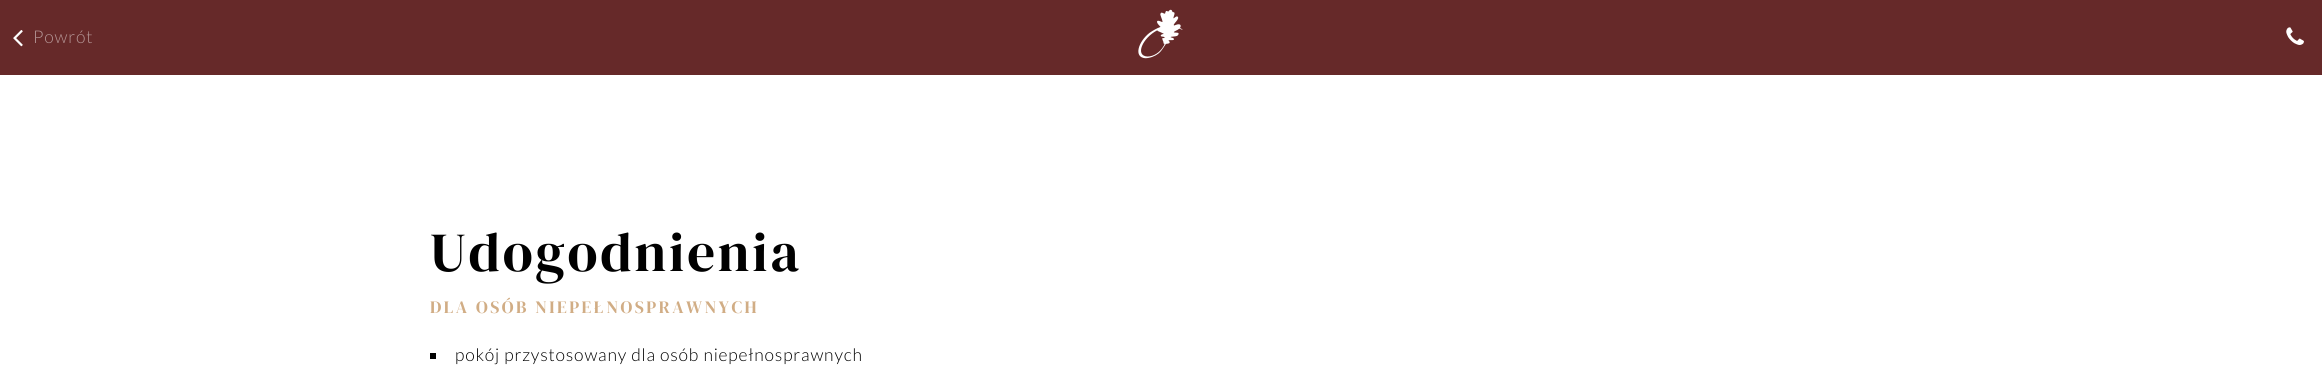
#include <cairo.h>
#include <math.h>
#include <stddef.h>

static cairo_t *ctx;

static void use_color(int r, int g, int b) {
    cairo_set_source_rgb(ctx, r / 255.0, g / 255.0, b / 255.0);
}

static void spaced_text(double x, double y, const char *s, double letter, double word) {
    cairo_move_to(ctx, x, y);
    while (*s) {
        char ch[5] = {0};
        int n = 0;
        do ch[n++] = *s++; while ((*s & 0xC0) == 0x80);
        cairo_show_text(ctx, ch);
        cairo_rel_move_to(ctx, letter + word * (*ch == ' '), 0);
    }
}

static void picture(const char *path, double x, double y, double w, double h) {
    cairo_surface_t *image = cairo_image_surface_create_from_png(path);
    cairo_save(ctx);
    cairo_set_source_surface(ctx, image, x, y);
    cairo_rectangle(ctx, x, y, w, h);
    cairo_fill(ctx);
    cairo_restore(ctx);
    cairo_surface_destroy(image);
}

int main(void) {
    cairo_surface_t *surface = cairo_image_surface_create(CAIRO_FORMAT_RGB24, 2322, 369);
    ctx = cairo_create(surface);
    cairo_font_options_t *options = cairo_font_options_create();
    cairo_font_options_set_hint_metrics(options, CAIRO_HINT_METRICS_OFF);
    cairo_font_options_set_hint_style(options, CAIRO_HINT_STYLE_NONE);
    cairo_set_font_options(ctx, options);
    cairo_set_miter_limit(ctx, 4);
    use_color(255, 255, 255);
    cairo_paint(ctx);
    use_color(102, 41, 41);
    cairo_rectangle(ctx, 0, 0, 2322, 75);
    cairo_fill(ctx);
    picture("img1.png", 13, 30, 10, 17);
    cairo_select_font_face(ctx, "Lato Light", CAIRO_FONT_SLANT_NORMAL, CAIRO_FONT_WEIGHT_NORMAL);
    cairo_set_font_size(ctx, 17.5);
    use_color(179, 148, 148);
    spaced_text(33, 43, "Powrót", 0.8, 0);
    picture("img2.png", 1138, 9, 45, 50);
    picture("img3.png", 2286, 27, 18, 18);
    cairo_select_font_face(ctx, "DM Serif Display", CAIRO_FONT_SLANT_NORMAL, CAIRO_FONT_WEIGHT_NORMAL);
    cairo_set_font_size(ctx, 55);
    use_color(0, 0, 0);
    spaced_text(430, 271, "Udogodnienia", 2.75, 0);
    cairo_set_font_size(ctx, 17.5);
    use_color(209, 173, 133);
    spaced_text(430, 313, "DLA OSÓB NIEPEŁNOSPRAWNYCH", 2.5, 0);
    use_color(0, 0, 0);
    cairo_rectangle(ctx, 430, 353, 6, 6);
    cairo_fill(ctx);
    cairo_select_font_face(ctx, "Lato Light", CAIRO_FONT_SLANT_NORMAL, CAIRO_FONT_WEIGHT_NORMAL);
    spaced_text(455, 361, "pokój przystosowany dla osób niepełnosprawnych", 0.8, 0);
    cairo_surface_write_to_png(surface, "result.png");
    cairo_font_options_destroy(options);
    cairo_destroy(ctx);
    cairo_surface_destroy(surface);
    return 0;
}
